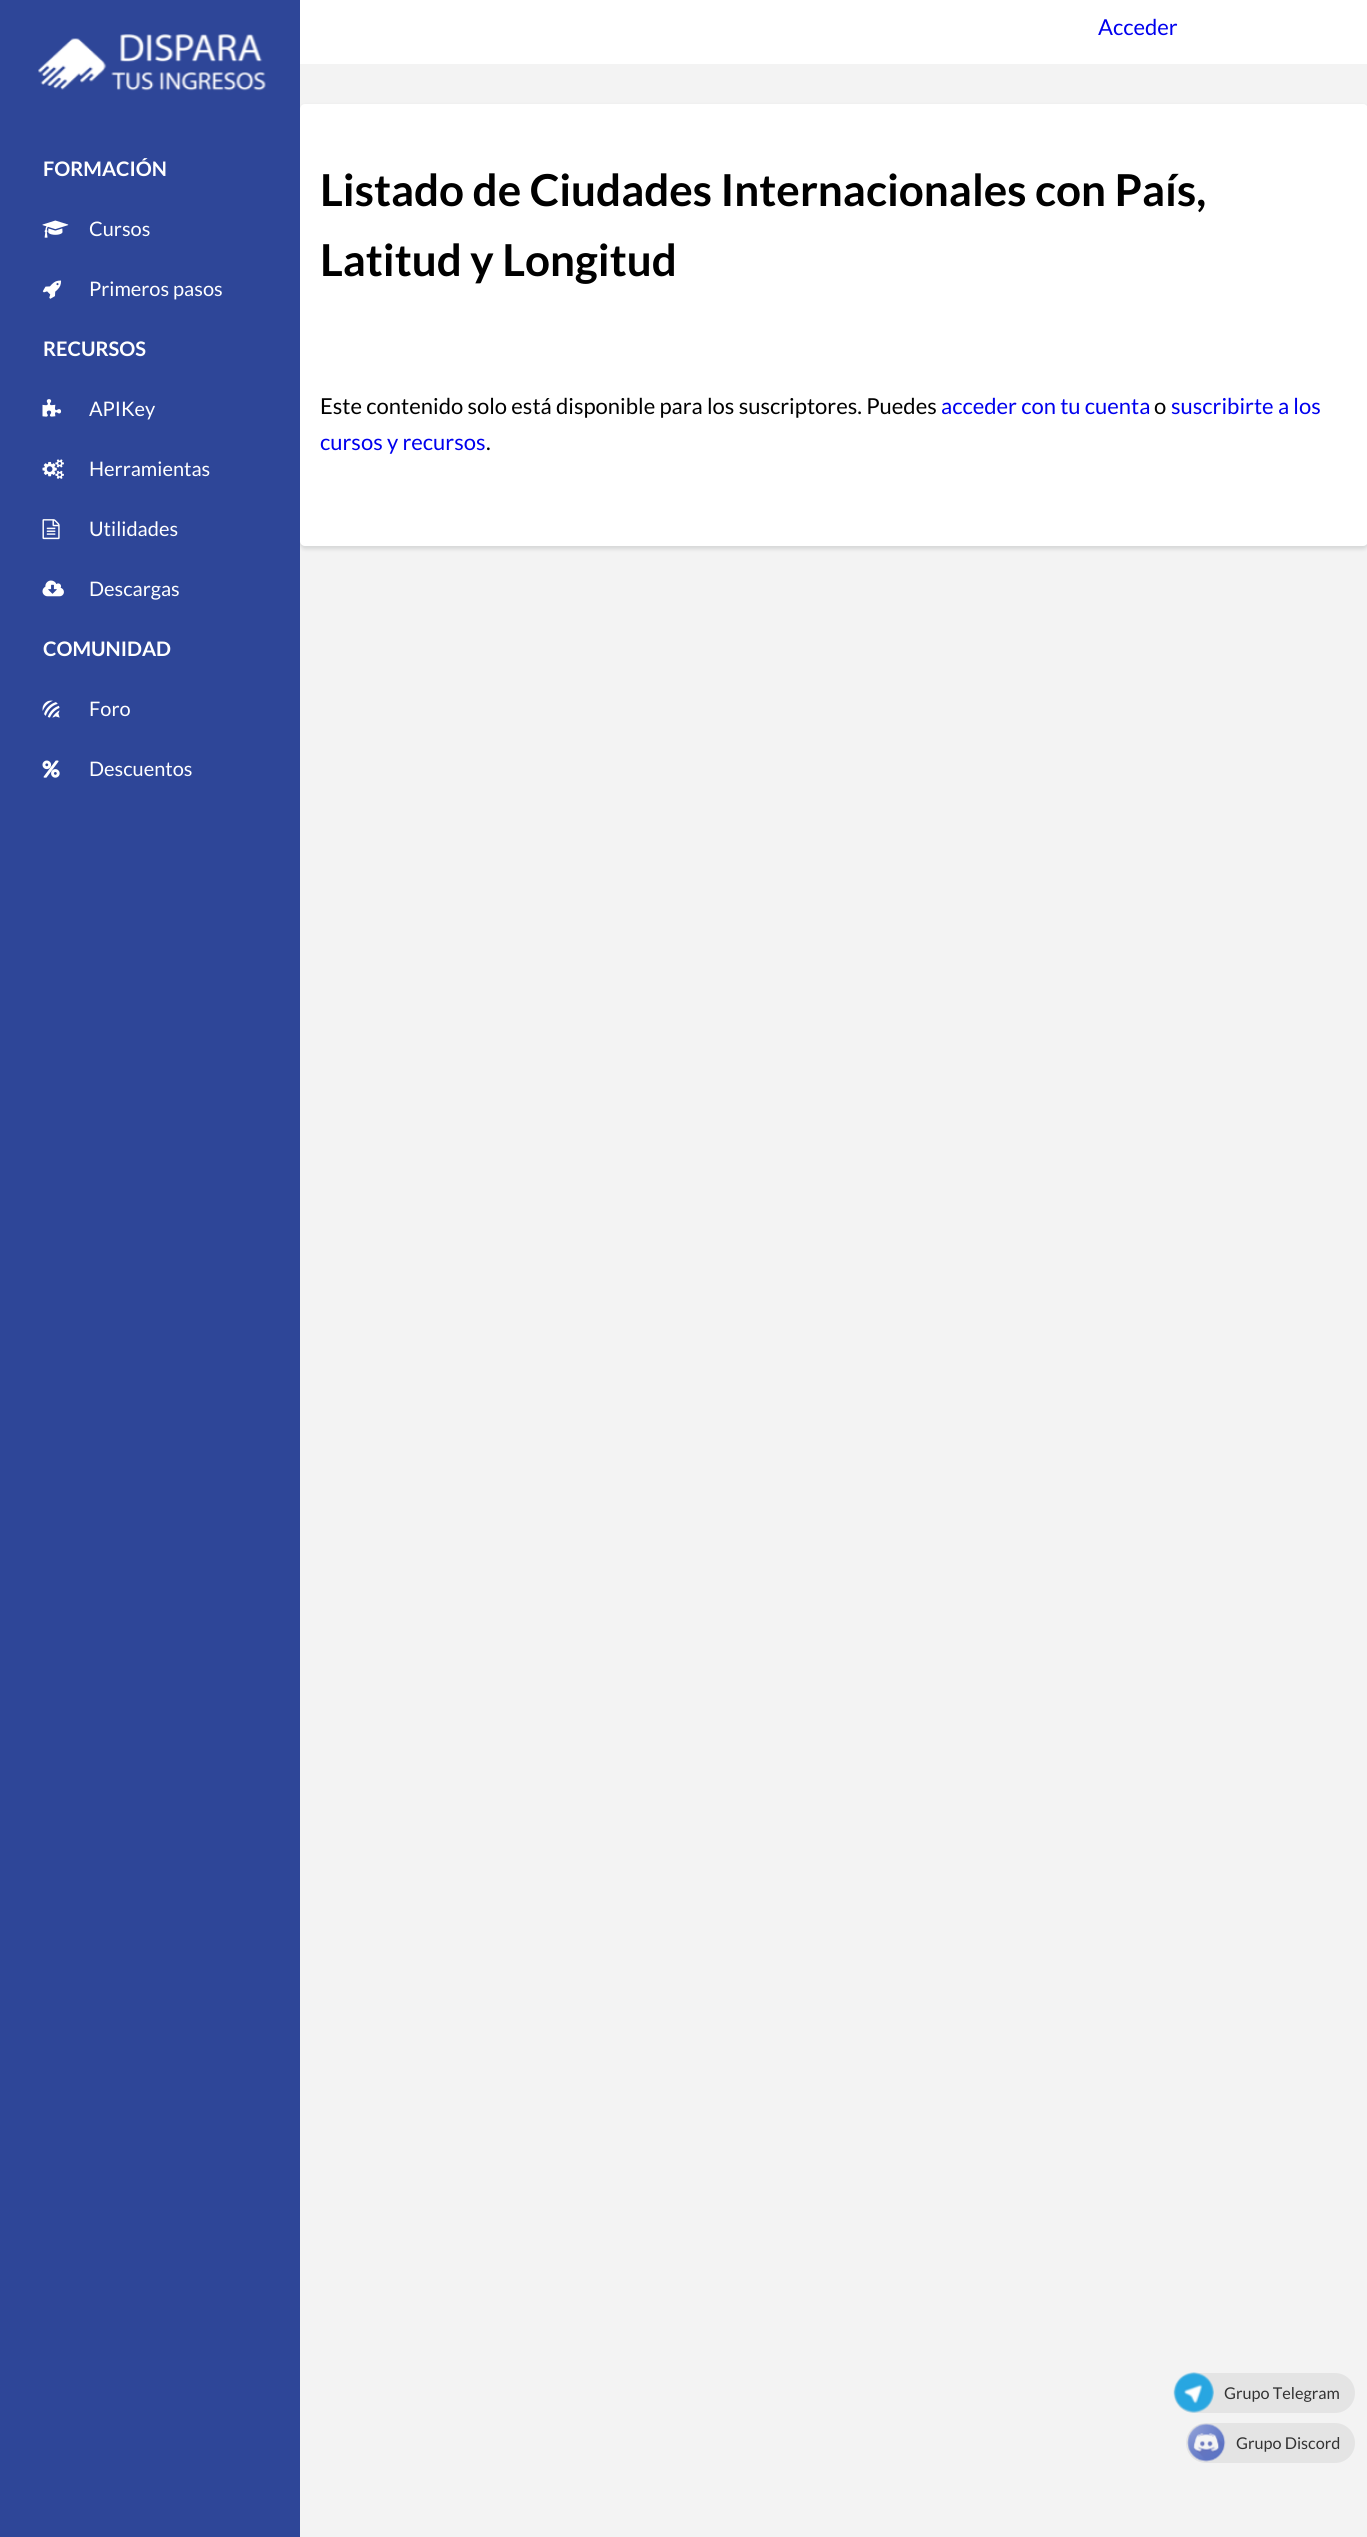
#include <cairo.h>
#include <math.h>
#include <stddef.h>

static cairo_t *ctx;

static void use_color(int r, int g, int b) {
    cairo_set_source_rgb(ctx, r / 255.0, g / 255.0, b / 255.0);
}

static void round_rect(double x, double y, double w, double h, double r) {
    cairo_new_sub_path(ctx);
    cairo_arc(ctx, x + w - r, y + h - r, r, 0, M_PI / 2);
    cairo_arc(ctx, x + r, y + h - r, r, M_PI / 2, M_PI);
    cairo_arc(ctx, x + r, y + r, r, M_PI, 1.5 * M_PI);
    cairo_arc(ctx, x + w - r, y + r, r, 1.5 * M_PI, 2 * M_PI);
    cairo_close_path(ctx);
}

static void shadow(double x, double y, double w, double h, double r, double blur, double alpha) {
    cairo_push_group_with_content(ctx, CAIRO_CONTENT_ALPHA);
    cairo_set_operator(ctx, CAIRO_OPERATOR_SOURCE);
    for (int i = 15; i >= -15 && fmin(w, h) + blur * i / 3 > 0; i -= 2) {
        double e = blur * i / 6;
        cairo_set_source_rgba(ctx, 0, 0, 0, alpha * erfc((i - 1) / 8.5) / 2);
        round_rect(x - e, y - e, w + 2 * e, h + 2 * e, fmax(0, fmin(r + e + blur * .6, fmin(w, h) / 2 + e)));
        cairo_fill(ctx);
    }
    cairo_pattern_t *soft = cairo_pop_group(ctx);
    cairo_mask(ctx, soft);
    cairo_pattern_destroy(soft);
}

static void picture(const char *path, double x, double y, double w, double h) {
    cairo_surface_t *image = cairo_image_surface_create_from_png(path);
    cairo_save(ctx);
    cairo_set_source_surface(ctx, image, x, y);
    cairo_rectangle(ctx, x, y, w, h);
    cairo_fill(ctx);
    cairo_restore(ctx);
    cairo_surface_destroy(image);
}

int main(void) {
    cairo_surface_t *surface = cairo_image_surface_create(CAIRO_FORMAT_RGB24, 1367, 2537);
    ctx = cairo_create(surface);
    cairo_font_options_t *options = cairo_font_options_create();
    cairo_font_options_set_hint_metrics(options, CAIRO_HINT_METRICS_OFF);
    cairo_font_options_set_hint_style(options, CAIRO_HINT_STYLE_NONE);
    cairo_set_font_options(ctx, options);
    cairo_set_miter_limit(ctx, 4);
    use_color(243, 243, 243);
    cairo_paint(ctx);
    use_color(55, 63, 67);
    shadow(300, 106, 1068, 443, 5, 2, 0.16);
    use_color(46, 70, 152);
    cairo_rectangle(ctx, 0, 0, 300, 2537);
    cairo_fill(ctx);
    picture("img1.png", 38, 34, 228, 57);
    cairo_select_font_face(ctx, "Lato", CAIRO_FONT_SLANT_NORMAL, CAIRO_FONT_WEIGHT_BOLD);
    cairo_set_font_size(ctx, 20);
    use_color(255, 255, 255);
    cairo_move_to(ctx, 43, 176);
    cairo_show_text(ctx, "FORMACIÓN");
    picture("img2.png", 42, 220, 27, 18);
    cairo_select_font_face(ctx, "Lato", CAIRO_FONT_SLANT_NORMAL, CAIRO_FONT_WEIGHT_NORMAL);
    cairo_move_to(ctx, 89, 236);
    cairo_show_text(ctx, "Cursos");
    picture("img3.png", 42, 280, 20, 19);
    cairo_move_to(ctx, 89, 296);
    cairo_show_text(ctx, "Primeros pasos");
    cairo_select_font_face(ctx, "Lato", CAIRO_FONT_SLANT_NORMAL, CAIRO_FONT_WEIGHT_BOLD);
    cairo_move_to(ctx, 43, 356);
    cairo_show_text(ctx, "RECURSOS");
    picture("img4.png", 42, 399, 20, 18);
    cairo_select_font_face(ctx, "Lato", CAIRO_FONT_SLANT_NORMAL, CAIRO_FONT_WEIGHT_NORMAL);
    cairo_move_to(ctx, 89, 416);
    cairo_show_text(ctx, "APIKey");
    picture("img5.png", 42, 459, 22, 20);
    cairo_move_to(ctx, 89, 476);
    cairo_show_text(ctx, "Herramientas");
    picture("img6.png", 42, 519, 18, 21);
    cairo_move_to(ctx, 89, 536);
    cairo_show_text(ctx, "Utilidades");
    picture("img7.png", 42, 580, 22, 17);
    cairo_move_to(ctx, 89, 596);
    cairo_show_text(ctx, "Descargas");
    cairo_select_font_face(ctx, "Lato", CAIRO_FONT_SLANT_NORMAL, CAIRO_FONT_WEIGHT_BOLD);
    cairo_move_to(ctx, 43, 656);
    cairo_show_text(ctx, "COMUNIDAD");
    picture("img8.png", 42, 700, 18, 18);
    cairo_select_font_face(ctx, "Lato", CAIRO_FONT_SLANT_NORMAL, CAIRO_FONT_WEIGHT_NORMAL);
    cairo_move_to(ctx, 89, 716);
    cairo_show_text(ctx, "Foro");
    picture("img9.png", 42, 760, 18, 18);
    cairo_move_to(ctx, 89, 776);
    cairo_show_text(ctx, "Descuentos");
    cairo_rectangle(ctx, 300, 0, 1067, 64);
    cairo_fill(ctx);
    cairo_set_font_size(ctx, 22);
    use_color(0, 0, 238);
    cairo_move_to(ctx, 1098, 35);
    cairo_show_text(ctx, "Acceder");
    use_color(255, 255, 255);
    round_rect(300, 104, 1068, 442, 5);
    cairo_fill(ctx);
    cairo_select_font_face(ctx, "Lato", CAIRO_FONT_SLANT_NORMAL, CAIRO_FONT_WEIGHT_BOLD);
    cairo_set_font_size(ctx, 44);
    use_color(0, 0, 0);
    cairo_move_to(ctx, 320, 206);
    cairo_show_text(ctx, "Listado de Ciudades Internacionales con País,");
    cairo_move_to(ctx, 320, 276);
    cairo_show_text(ctx, "Latitud y Longitud");
    cairo_select_font_face(ctx, "Lato", CAIRO_FONT_SLANT_NORMAL, CAIRO_FONT_WEIGHT_NORMAL);
    cairo_set_font_size(ctx, 22);
    cairo_move_to(ctx, 320, 414);
    cairo_show_text(ctx, "Este contenido solo está disponible para los suscriptores. Puedes");
    use_color(0, 0, 238);
    cairo_move_to(ctx, 941, 414);
    cairo_show_text(ctx, "acceder con tu cuenta");
    use_color(0, 0, 0);
    cairo_move_to(ctx, 1154, 414);
    cairo_show_text(ctx, "o");
    use_color(0, 0, 238);
    cairo_move_to(ctx, 1171, 414);
    cairo_show_text(ctx, "suscribirte a los");
    cairo_move_to(ctx, 320, 450);
    cairo_show_text(ctx, "cursos y recursos");
    use_color(0, 0, 0);
    cairo_move_to(ctx, 486, 450);
    cairo_show_text(ctx, ".");
    use_color(228, 228, 228);
    round_rect(1174, 2373, 181, 40, 20);
    cairo_fill(ctx);
    picture("img10.png", 1173, 2372, 41, 41);
    cairo_set_font_size(ctx, 16.25);
    use_color(51, 51, 51);
    cairo_move_to(ctx, 1224, 2399);
    cairo_show_text(ctx, "Grupo Telegram");
    use_color(228, 228, 228);
    round_rect(1186, 2423, 169, 40, 20);
    cairo_fill(ctx);
    picture("img11.png", 1187, 2423, 39, 39);
    use_color(51, 51, 51);
    cairo_move_to(ctx, 1236, 2449);
    cairo_show_text(ctx, "Grupo Discord");
    cairo_surface_write_to_png(surface, "result.png");
    cairo_font_options_destroy(options);
    cairo_destroy(ctx);
    cairo_surface_destroy(surface);
    return 0;
}
